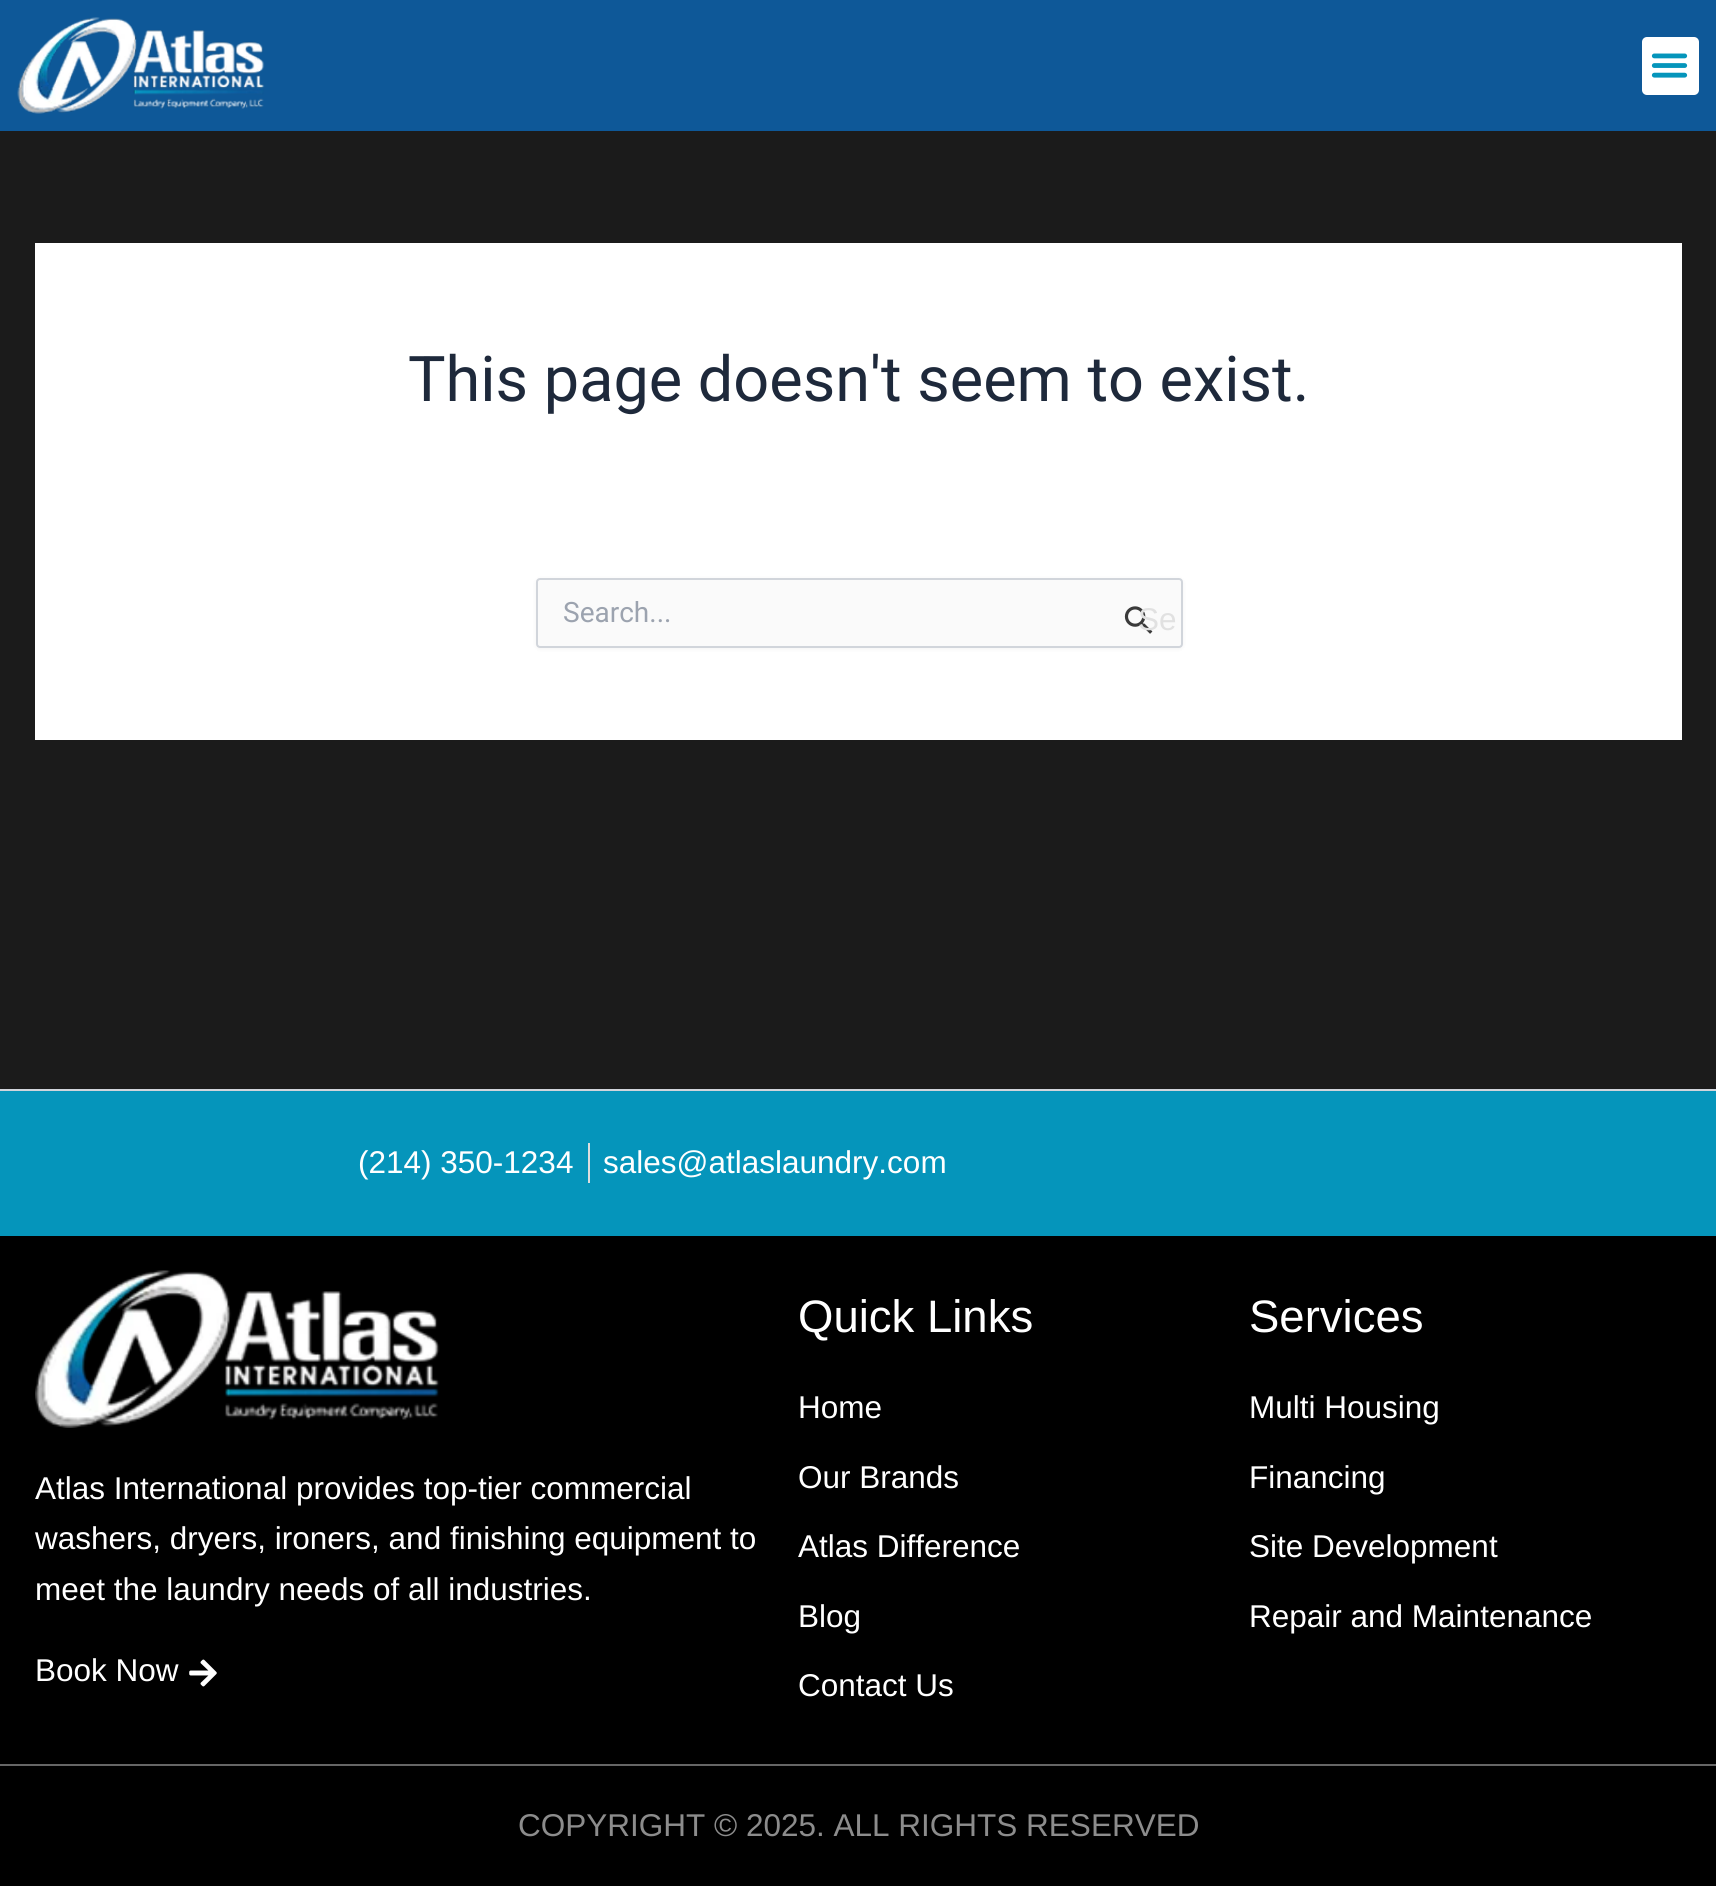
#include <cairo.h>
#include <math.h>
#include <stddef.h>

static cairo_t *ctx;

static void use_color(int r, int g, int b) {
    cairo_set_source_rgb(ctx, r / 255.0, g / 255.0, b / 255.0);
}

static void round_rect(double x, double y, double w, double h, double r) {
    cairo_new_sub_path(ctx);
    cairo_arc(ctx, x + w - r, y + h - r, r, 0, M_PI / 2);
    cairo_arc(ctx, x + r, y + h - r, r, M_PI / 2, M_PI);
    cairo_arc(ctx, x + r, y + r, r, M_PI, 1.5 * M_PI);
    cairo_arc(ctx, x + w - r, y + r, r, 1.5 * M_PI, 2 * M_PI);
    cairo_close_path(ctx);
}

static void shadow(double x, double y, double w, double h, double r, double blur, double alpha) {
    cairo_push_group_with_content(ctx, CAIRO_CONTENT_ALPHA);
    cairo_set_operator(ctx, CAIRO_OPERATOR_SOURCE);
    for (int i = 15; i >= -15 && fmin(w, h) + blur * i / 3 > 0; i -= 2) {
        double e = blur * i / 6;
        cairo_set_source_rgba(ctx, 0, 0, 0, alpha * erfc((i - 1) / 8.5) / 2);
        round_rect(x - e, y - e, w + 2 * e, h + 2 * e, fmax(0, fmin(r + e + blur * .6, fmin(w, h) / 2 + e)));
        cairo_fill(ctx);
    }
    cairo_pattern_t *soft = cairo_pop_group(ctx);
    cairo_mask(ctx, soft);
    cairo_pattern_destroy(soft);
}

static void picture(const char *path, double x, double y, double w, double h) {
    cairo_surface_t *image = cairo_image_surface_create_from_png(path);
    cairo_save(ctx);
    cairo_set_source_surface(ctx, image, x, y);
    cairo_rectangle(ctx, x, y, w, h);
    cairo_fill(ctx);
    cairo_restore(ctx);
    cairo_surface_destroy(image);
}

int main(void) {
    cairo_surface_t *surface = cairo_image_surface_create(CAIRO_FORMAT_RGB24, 1716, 1886);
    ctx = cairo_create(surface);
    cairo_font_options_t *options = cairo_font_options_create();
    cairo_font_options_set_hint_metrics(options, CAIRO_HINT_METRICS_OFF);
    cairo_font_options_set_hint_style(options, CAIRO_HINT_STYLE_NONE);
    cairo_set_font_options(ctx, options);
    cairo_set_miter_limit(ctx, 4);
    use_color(27, 27, 27);
    cairo_paint(ctx);
    use_color(14, 88, 152);
    cairo_rectangle(ctx, 0, 0, 1716, 131);
    cairo_fill(ctx);
    picture("img1.png", 17, 17, 248, 97);
    use_color(255, 255, 255);
    round_rect(1642, 37, 57, 58, 5);
    cairo_fill(ctx);
    picture("img2.png", 1651, 53, 37, 25);
    cairo_rectangle(ctx, 35, 243, 1647, 497);
    cairo_fill(ctx);
    cairo_select_font_face(ctx, "Roboto", CAIRO_FONT_SLANT_NORMAL, CAIRO_FONT_WEIGHT_NORMAL);
    cairo_set_font_size(ctx, 63);
    use_color(30, 41, 59);
    cairo_move_to(ctx, 408, 401);
    cairo_show_text(ctx, "This page doesn't seem to exist.");
    use_color(0, 0, 0);
    shadow(536, 579, 647, 70, 4, 2, 0.05);
    use_color(250, 250, 250);
    round_rect(537, 579, 645, 68, 3);
    cairo_fill_preserve(ctx);
    use_color(209, 213, 219);
    cairo_stroke(ctx);
    cairo_set_font_size(ctx, 28);
    use_color(156, 163, 175);
    cairo_move_to(ctx, 563, 622);
    cairo_show_text(ctx, "Search...");
    picture("img3.png", 1124, 606, 29, 28);
    cairo_select_font_face(ctx, "Liberation Sans", CAIRO_FONT_SLANT_NORMAL, CAIRO_FONT_WEIGHT_NORMAL);
    cairo_set_font_size(ctx, 31.5);
    use_color(225, 225, 225);
    cairo_move_to(ctx, 1138, 630);
    cairo_show_text(ctx, "Se");
    use_color(5, 149, 187);
    cairo_rectangle(ctx, 0, 1091, 1716, 145);
    cairo_fill(ctx);
    use_color(209, 213, 219);
    cairo_rectangle(ctx, 0, 1089, 1716, 2);
    cairo_fill(ctx);
    use_color(255, 255, 255);
    cairo_move_to(ctx, 358, 1173);
    cairo_show_text(ctx, "(214) 350-1234");
    use_color(221, 221, 221);
    cairo_rectangle(ctx, 588, 1143, 2, 40);
    cairo_fill(ctx);
    use_color(255, 255, 255);
    cairo_move_to(ctx, 603, 1173);
    cairo_show_text(ctx, "sales@atlaslaundry.com");
    use_color(0, 0, 0);
    cairo_rectangle(ctx, 0, 1236, 1716, 528);
    cairo_fill(ctx);
    picture("img4.png", 35, 1270, 405, 158);
    use_color(255, 255, 255);
    cairo_move_to(ctx, 35, 1499);
    cairo_show_text(ctx, "Atlas International provides top-tier commercial");
    cairo_move_to(ctx, 35, 1549);
    cairo_show_text(ctx, "washers, dryers, ironers, and finishing equipment to");
    cairo_move_to(ctx, 35, 1600);
    cairo_show_text(ctx, "meet the laundry needs of all industries.");
    cairo_move_to(ctx, 35, 1681);
    cairo_show_text(ctx, "Book Now");
    picture("img5.png", 189, 1659, 28, 28);
    cairo_set_font_size(ctx, 45.5);
    cairo_move_to(ctx, 798, 1332);
    cairo_show_text(ctx, "Quick Links");
    cairo_set_font_size(ctx, 31.5);
    cairo_move_to(ctx, 798, 1418);
    cairo_show_text(ctx, "Home");
    cairo_move_to(ctx, 798, 1488);
    cairo_show_text(ctx, "Our Brands");
    cairo_move_to(ctx, 798, 1557);
    cairo_show_text(ctx, "Atlas Difference");
    cairo_move_to(ctx, 798, 1627);
    cairo_show_text(ctx, "Blog");
    cairo_move_to(ctx, 798, 1696);
    cairo_show_text(ctx, "Contact Us");
    cairo_set_font_size(ctx, 45.5);
    cairo_move_to(ctx, 1249, 1332);
    cairo_show_text(ctx, "Services");
    cairo_set_font_size(ctx, 31.5);
    cairo_move_to(ctx, 1249, 1418);
    cairo_show_text(ctx, "Multi Housing");
    cairo_move_to(ctx, 1249, 1488);
    cairo_show_text(ctx, "Financing");
    cairo_move_to(ctx, 1249, 1557);
    cairo_show_text(ctx, "Site Development");
    cairo_move_to(ctx, 1249, 1627);
    cairo_show_text(ctx, "Repair and Maintenance");
    use_color(0, 0, 0);
    cairo_rectangle(ctx, 0, 1766, 1716, 120);
    cairo_fill(ctx);
    use_color(102, 102, 102);
    cairo_rectangle(ctx, 0, 1764, 1716, 2);
    cairo_fill(ctx);
    use_color(140, 140, 140);
    cairo_move_to(ctx, 518, 1836);
    cairo_show_text(ctx, "COPYRIGHT © 2025. ALL RIGHTS RESERVED");
    cairo_surface_write_to_png(surface, "result.png");
    cairo_font_options_destroy(options);
    cairo_destroy(ctx);
    cairo_surface_destroy(surface);
    return 0;
}
